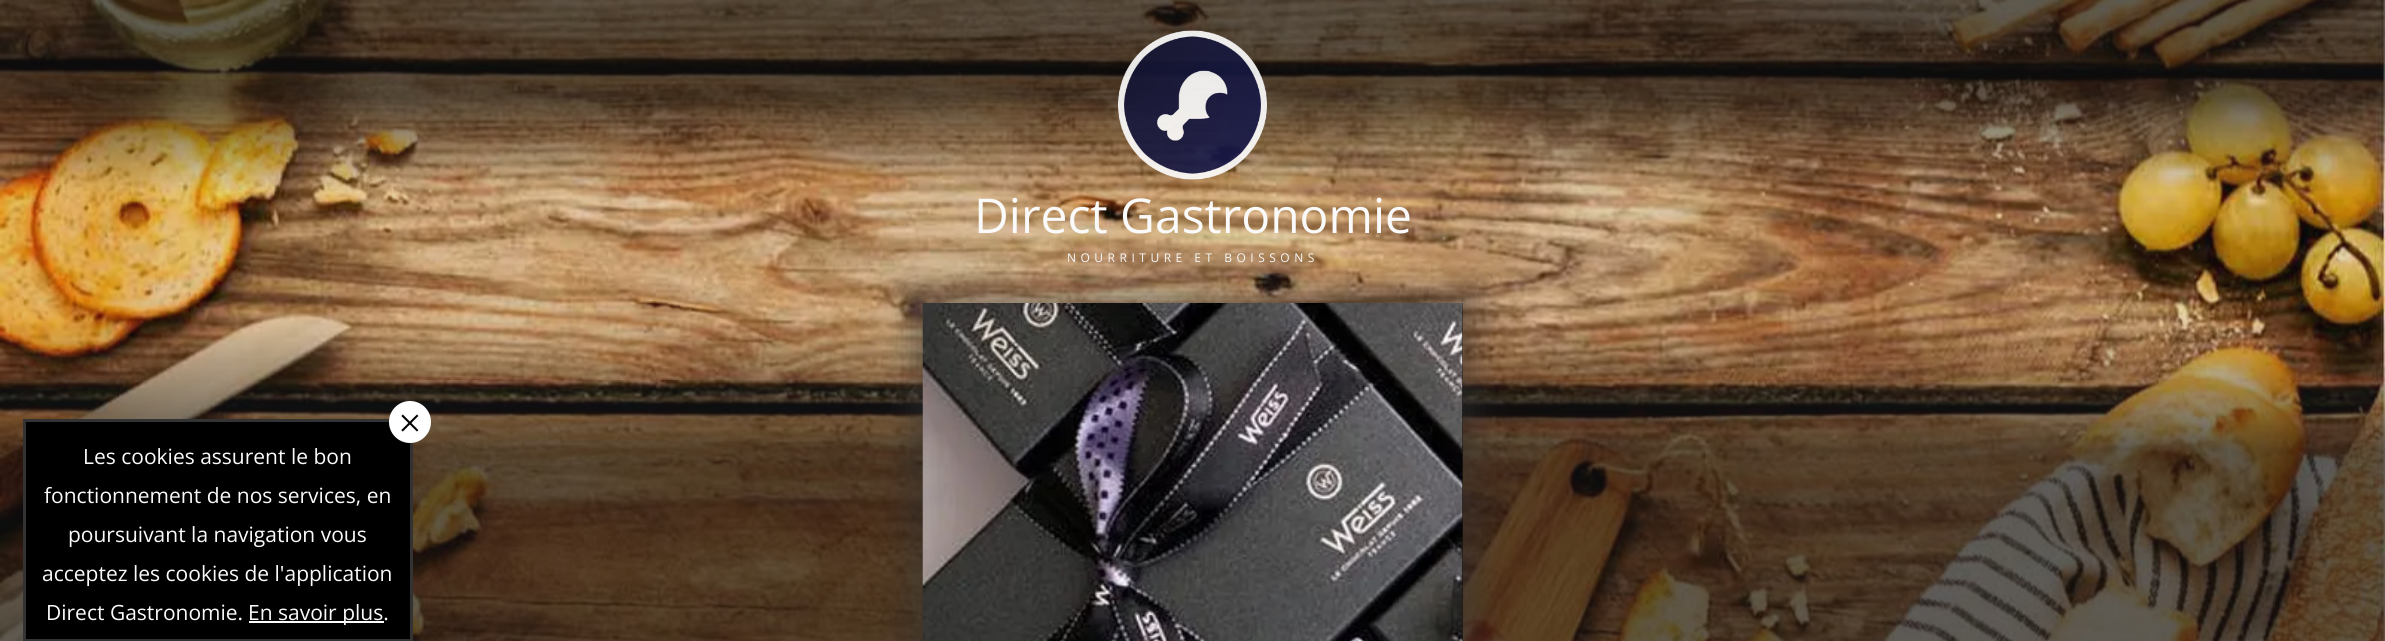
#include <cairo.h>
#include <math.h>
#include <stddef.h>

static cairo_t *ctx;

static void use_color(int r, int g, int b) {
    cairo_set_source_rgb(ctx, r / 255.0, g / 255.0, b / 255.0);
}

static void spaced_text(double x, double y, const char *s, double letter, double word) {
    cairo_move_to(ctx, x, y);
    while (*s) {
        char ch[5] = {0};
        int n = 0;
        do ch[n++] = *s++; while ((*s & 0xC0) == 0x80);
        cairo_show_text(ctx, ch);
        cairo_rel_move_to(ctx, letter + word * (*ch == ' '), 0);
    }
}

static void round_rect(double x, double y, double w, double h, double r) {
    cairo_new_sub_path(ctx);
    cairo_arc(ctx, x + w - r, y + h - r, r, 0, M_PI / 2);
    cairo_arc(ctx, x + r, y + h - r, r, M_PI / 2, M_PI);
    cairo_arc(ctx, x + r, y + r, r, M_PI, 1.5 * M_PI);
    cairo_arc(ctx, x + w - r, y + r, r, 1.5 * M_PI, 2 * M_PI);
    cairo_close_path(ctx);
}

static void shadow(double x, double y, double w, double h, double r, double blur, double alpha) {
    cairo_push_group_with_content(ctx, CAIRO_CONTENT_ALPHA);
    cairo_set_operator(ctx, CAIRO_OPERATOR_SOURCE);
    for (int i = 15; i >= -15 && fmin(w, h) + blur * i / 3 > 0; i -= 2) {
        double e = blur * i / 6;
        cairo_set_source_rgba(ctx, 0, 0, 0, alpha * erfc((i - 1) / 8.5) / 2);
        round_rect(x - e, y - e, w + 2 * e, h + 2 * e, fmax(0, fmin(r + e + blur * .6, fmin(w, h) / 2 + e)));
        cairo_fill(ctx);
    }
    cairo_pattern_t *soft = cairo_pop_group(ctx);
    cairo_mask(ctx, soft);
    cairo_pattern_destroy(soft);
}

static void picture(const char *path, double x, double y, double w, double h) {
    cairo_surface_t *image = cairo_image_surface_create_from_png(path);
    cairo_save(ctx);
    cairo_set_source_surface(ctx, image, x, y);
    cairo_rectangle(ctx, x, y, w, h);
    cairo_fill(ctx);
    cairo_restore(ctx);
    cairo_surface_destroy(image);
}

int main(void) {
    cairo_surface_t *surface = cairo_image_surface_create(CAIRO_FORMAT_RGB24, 2385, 641);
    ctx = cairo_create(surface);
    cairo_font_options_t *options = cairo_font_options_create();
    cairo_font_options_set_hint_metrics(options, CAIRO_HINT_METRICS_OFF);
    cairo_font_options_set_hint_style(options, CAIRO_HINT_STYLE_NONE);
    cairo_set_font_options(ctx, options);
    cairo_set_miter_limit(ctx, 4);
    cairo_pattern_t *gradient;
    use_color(255, 255, 255);
    cairo_paint(ctx);
    picture("img1.png", 0, 0, 2385, 641);
    gradient = cairo_pattern_create_linear(1193, 0, 1193, 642);
    cairo_pattern_add_color_stop_rgba(gradient, 0.15, 0.063, 0.063, 0.063, 0.67);
    cairo_pattern_add_color_stop_rgba(gradient, 0.3, 0.188, 0.188, 0.188, 0.12);
    cairo_pattern_add_color_stop_rgba(gradient, 0.5, 0.188, 0.188, 0.188, 0.12);
    cairo_pattern_add_color_stop_rgba(gradient, 0.7, 0.063, 0.063, 0.063, 0.67);
    cairo_set_source(ctx, gradient);
    cairo_pattern_destroy(gradient);
    cairo_rectangle(ctx, 0, 0, 2385, 641);
    cairo_fill(ctx);
    picture("img2.png", 1118, 30, 149, 150);
    cairo_select_font_face(ctx, "Open Sans", CAIRO_FONT_SLANT_NORMAL, CAIRO_FONT_WEIGHT_NORMAL);
    cairo_set_font_size(ctx, 48);
    use_color(250, 250, 250);
    cairo_move_to(ctx, 974, 233);
    cairo_show_text(ctx, "Direct Gastronomie");
    cairo_set_font_size(ctx, 12);
    spaced_text(1067, 262, "NOURRITURE ET BOISSONS", 4.5, 0);
    use_color(0, 0, 0);
    cairo_rectangle(ctx, 24.5, 420.5, 387, 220);
    cairo_fill_preserve(ctx);
    use_color(51, 51, 51);
    cairo_set_line_width(ctx, 3);
    cairo_stroke(ctx);
    use_color(255, 255, 255);
    cairo_arc(ctx, 410, 422, 21, 0, 2 * M_PI);
    cairo_fill(ctx);
    cairo_select_font_face(ctx, "Liberation Serif", CAIRO_FONT_SLANT_NORMAL, CAIRO_FONT_WEIGHT_NORMAL);
    cairo_set_font_size(ctx, 42);
    use_color(0, 0, 0);
    cairo_move_to(ctx, 398, 437);
    cairo_show_text(ctx, "×");
    cairo_select_font_face(ctx, "Open Sans", CAIRO_FONT_SLANT_NORMAL, CAIRO_FONT_WEIGHT_NORMAL);
    cairo_set_font_size(ctx, 21);
    use_color(250, 250, 250);
    cairo_move_to(ctx, 83, 464);
    cairo_show_text(ctx, "Les cookies assurent le bon");
    cairo_move_to(ctx, 44, 503);
    cairo_show_text(ctx, "fonctionnement de nos services, en");
    cairo_move_to(ctx, 68, 542);
    cairo_show_text(ctx, "poursuivant la navigation vous");
    cairo_move_to(ctx, 42, 581);
    cairo_show_text(ctx, "acceptez les cookies de l'application");
    cairo_move_to(ctx, 46, 620);
    cairo_show_text(ctx, "Direct Gastronomie.");
    use_color(255, 255, 255);
    cairo_rectangle(ctx, 249, 621, 135, 2);
    cairo_fill(ctx);
    use_color(250, 250, 250);
    cairo_move_to(ctx, 248, 620);
    cairo_show_text(ctx, "En savoir plus.");
    use_color(51, 51, 51);
    shadow(908, 288, 570, 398, 0, 15, 0.5);
    cairo_set_source_rgba(ctx, 0, 0, 0, 0.5);
    cairo_rectangle(ctx, 1462, 303, 1, 338);
    cairo_fill(ctx);
    picture("img3.png", 922, 303, 541, 338);
    cairo_surface_write_to_png(surface, "result.png");
    cairo_font_options_destroy(options);
    cairo_destroy(ctx);
    cairo_surface_destroy(surface);
    return 0;
}
